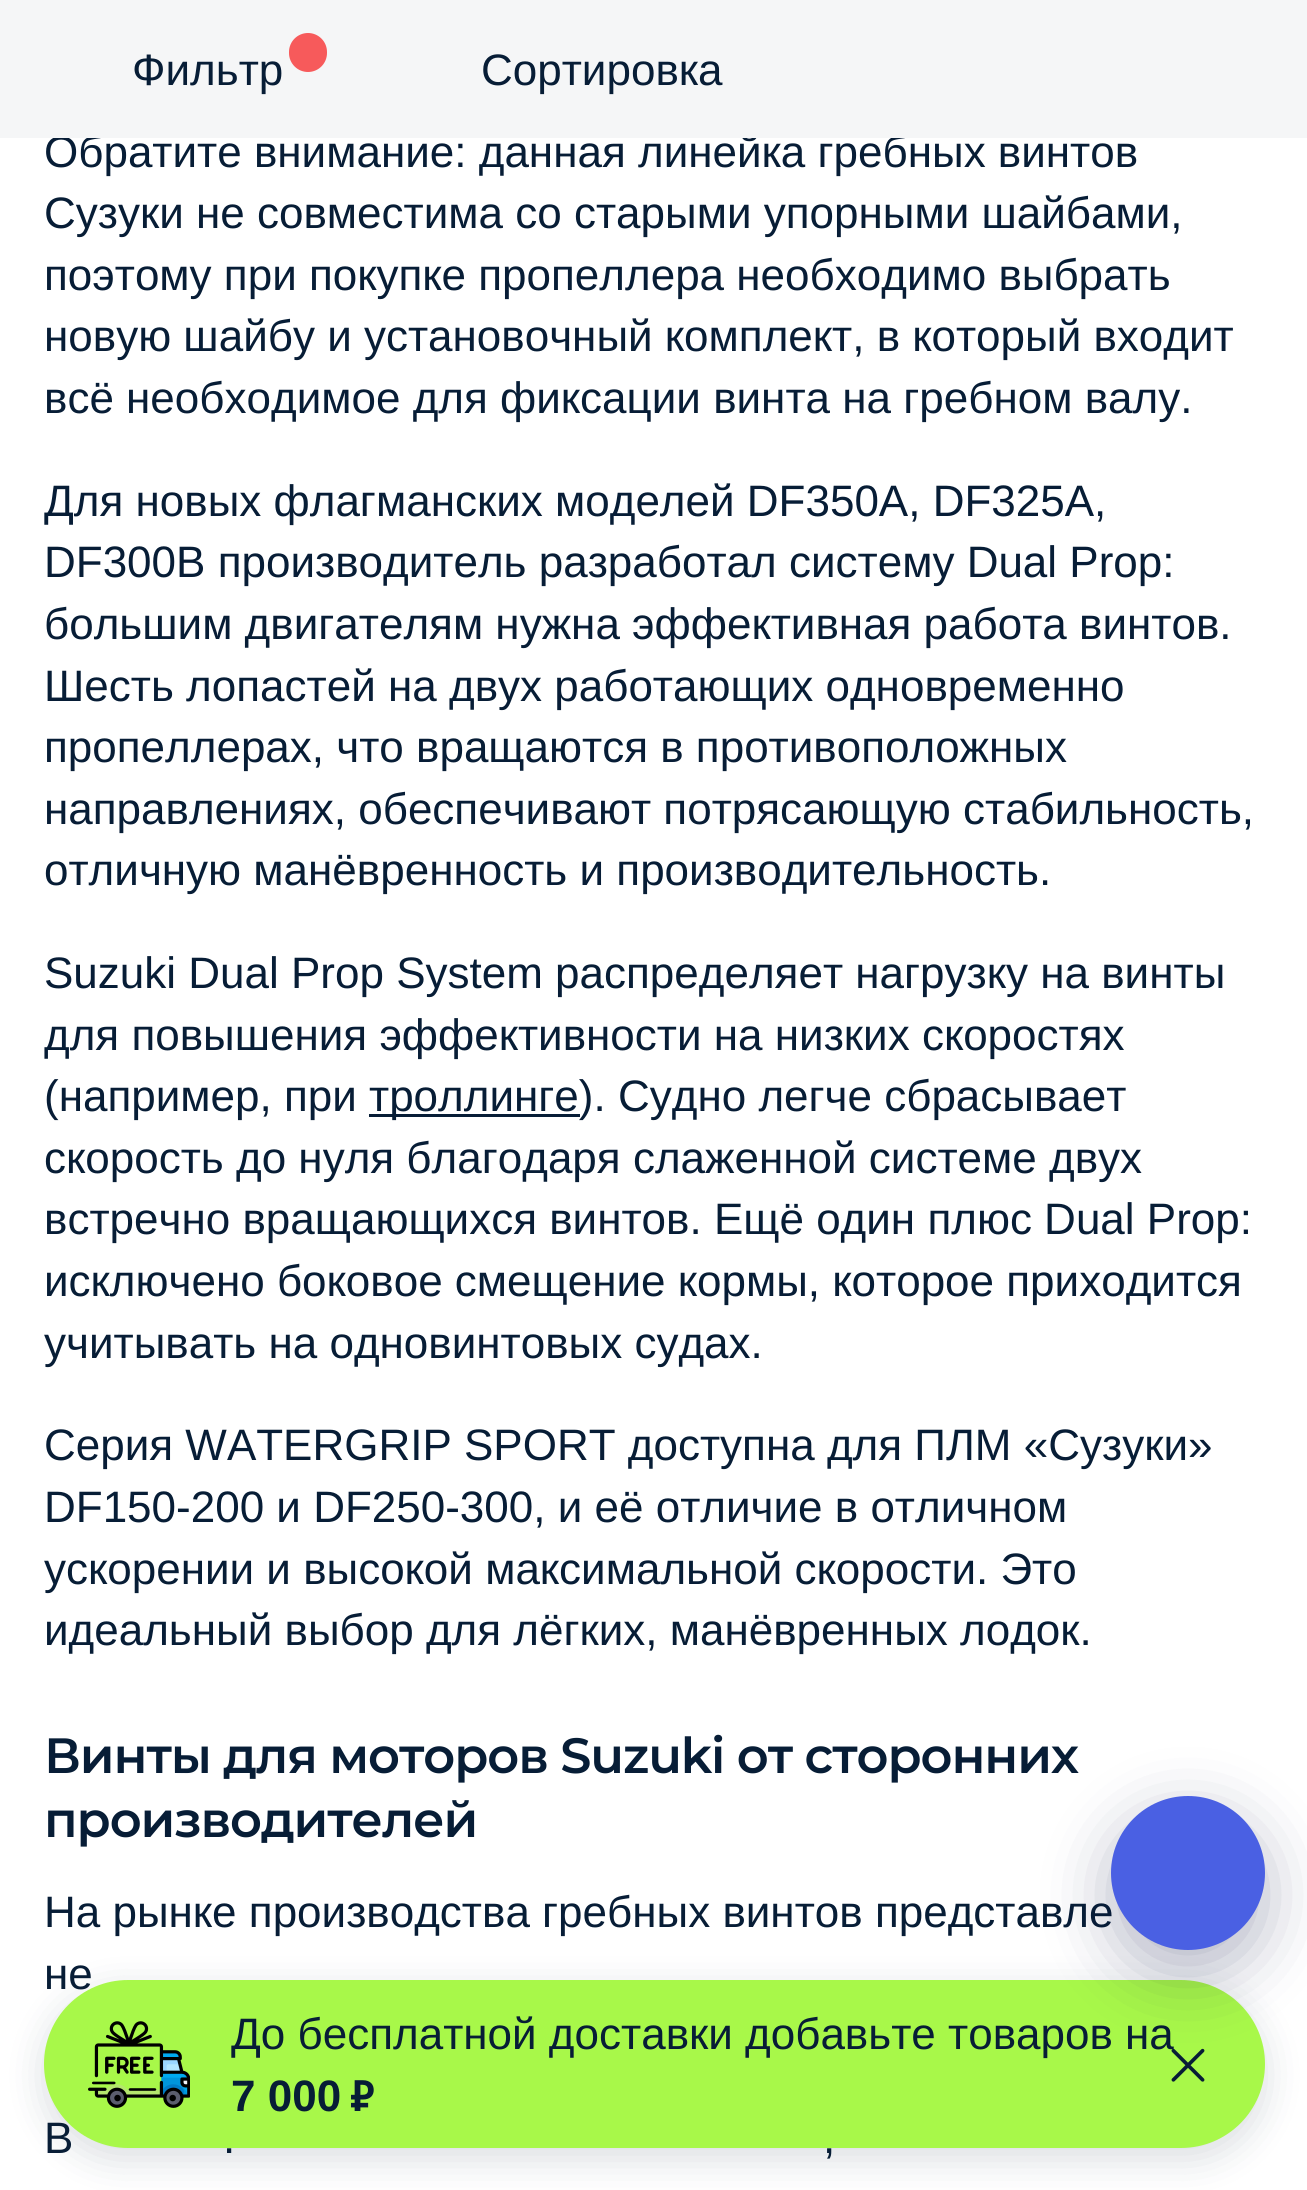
#include <cairo.h>
#include <math.h>
#include <stddef.h>

static cairo_t *ctx;

static void use_color(int r, int g, int b) {
    cairo_set_source_rgb(ctx, r / 255.0, g / 255.0, b / 255.0);
}

static void spaced_text(double x, double y, const char *s, double letter, double word) {
    cairo_move_to(ctx, x, y);
    while (*s) {
        char ch[5] = {0};
        int n = 0;
        do ch[n++] = *s++; while ((*s & 0xC0) == 0x80);
        cairo_show_text(ctx, ch);
        cairo_rel_move_to(ctx, letter + word * (*ch == ' '), 0);
    }
}

static void round_rect(double x, double y, double w, double h, double r) {
    cairo_new_sub_path(ctx);
    cairo_arc(ctx, x + w - r, y + h - r, r, 0, M_PI / 2);
    cairo_arc(ctx, x + r, y + h - r, r, M_PI / 2, M_PI);
    cairo_arc(ctx, x + r, y + r, r, M_PI, 1.5 * M_PI);
    cairo_arc(ctx, x + w - r, y + r, r, 1.5 * M_PI, 2 * M_PI);
    cairo_close_path(ctx);
}

static void shadow(double x, double y, double w, double h, double r, double blur, double alpha) {
    cairo_push_group_with_content(ctx, CAIRO_CONTENT_ALPHA);
    cairo_set_operator(ctx, CAIRO_OPERATOR_SOURCE);
    for (int i = 15; i >= -15 && fmin(w, h) + blur * i / 3 > 0; i -= 2) {
        double e = blur * i / 6;
        cairo_set_source_rgba(ctx, 0, 0, 0, alpha * erfc((i - 1) / 8.5) / 2);
        round_rect(x - e, y - e, w + 2 * e, h + 2 * e, fmax(0, fmin(r + e + blur * .6, fmin(w, h) / 2 + e)));
        cairo_fill(ctx);
    }
    cairo_pattern_t *soft = cairo_pop_group(ctx);
    cairo_mask(ctx, soft);
    cairo_pattern_destroy(soft);
}

static void picture(const char *path, double x, double y, double w, double h) {
    cairo_surface_t *image = cairo_image_surface_create_from_png(path);
    cairo_save(ctx);
    cairo_set_source_surface(ctx, image, x, y);
    cairo_rectangle(ctx, x, y, w, h);
    cairo_fill(ctx);
    cairo_restore(ctx);
    cairo_surface_destroy(image);
}

int main(void) {
    cairo_surface_t *surface = cairo_image_surface_create(CAIRO_FORMAT_RGB24, 1307, 2190);
    ctx = cairo_create(surface);
    cairo_font_options_t *options = cairo_font_options_create();
    cairo_font_options_set_hint_metrics(options, CAIRO_HINT_METRICS_OFF);
    cairo_font_options_set_hint_style(options, CAIRO_HINT_STYLE_NONE);
    cairo_set_font_options(ctx, options);
    cairo_set_miter_limit(ctx, 4);
    use_color(255, 255, 255);
    cairo_paint(ctx);
    cairo_select_font_face(ctx, "Liberation Sans", CAIRO_FONT_SLANT_NORMAL, CAIRO_FONT_WEIGHT_NORMAL);
    cairo_set_font_size(ctx, 44);
    use_color(7, 29, 54);
    cairo_move_to(ctx, 44, 167);
    cairo_show_text(ctx, "Обратите внимание: данная линейка гребных винтов");
    use_color(245, 246, 247);
    cairo_rectangle(ctx, 0, 0, 1307, 138);
    cairo_fill(ctx);
    use_color(7, 29, 54);
    cairo_move_to(ctx, 132, 85);
    cairo_show_text(ctx, "Фильтр");
    use_color(247, 90, 91);
    round_rect(289, 33, 38, 39, 19);
    cairo_fill(ctx);
    use_color(7, 29, 54);
    cairo_move_to(ctx, 481, 85);
    cairo_show_text(ctx, "Сортировка");
    cairo_move_to(ctx, 44, 228);
    cairo_show_text(ctx, "Сузуки не совместима со старыми упорными шайбами,");
    cairo_move_to(ctx, 44, 290);
    cairo_show_text(ctx, "поэтому при покупке пропеллера необходимо выбрать");
    cairo_move_to(ctx, 44, 351);
    cairo_show_text(ctx, "новую шайбу и установочный комплект, в который входит");
    cairo_move_to(ctx, 44, 413);
    cairo_show_text(ctx, "всё необходимое для фиксации винта на гребном валу.");
    cairo_move_to(ctx, 44, 516);
    cairo_show_text(ctx, "Для новых флагманских моделей DF350A, DF325A,");
    cairo_move_to(ctx, 44, 577);
    cairo_show_text(ctx, "DF300B производитель разработал систему Dual Prop:");
    cairo_move_to(ctx, 44, 639);
    cairo_show_text(ctx, "большим двигателям нужна эффективная работа винтов.");
    cairo_move_to(ctx, 44, 701);
    cairo_show_text(ctx, "Шесть лопастей на двух работающих одновременно");
    cairo_move_to(ctx, 44, 762);
    cairo_show_text(ctx, "пропеллерах, что вращаются в противоположных");
    cairo_move_to(ctx, 44, 824);
    cairo_show_text(ctx, "направлениях, обеспечивают потрясающую стабильность,");
    cairo_move_to(ctx, 44, 885);
    cairo_show_text(ctx, "отличную манёвренность и производительность.");
    cairo_move_to(ctx, 44, 988);
    cairo_show_text(ctx, "Suzuki Dual Prop System распределяет нагрузку на винты");
    cairo_move_to(ctx, 44, 1050);
    cairo_show_text(ctx, "для повышения эффективности на низких скоростях");
    cairo_move_to(ctx, 44, 1111);
    cairo_show_text(ctx, "(например, при");
    cairo_rectangle(ctx, 369, 1114, 211, 3);
    cairo_fill(ctx);
    cairo_move_to(ctx, 369, 1111);
    cairo_show_text(ctx, "троллинге). Судно легче сбрасывает");
    cairo_move_to(ctx, 44, 1173);
    cairo_show_text(ctx, "скорость до нуля благодаря слаженной системе двух");
    cairo_move_to(ctx, 44, 1234);
    cairo_show_text(ctx, "встречно вращающихся винтов. Ещё один плюс Dual Prop:");
    cairo_move_to(ctx, 44, 1296);
    cairo_show_text(ctx, "исключено боковое смещение кормы, которое приходится");
    cairo_move_to(ctx, 44, 1358);
    cairo_show_text(ctx, "учитывать на одновинтовых судах.");
    cairo_move_to(ctx, 44, 1460);
    cairo_show_text(ctx, "Серия WATERGRIP SPORT доступна для ПЛМ «Сузуки»");
    cairo_move_to(ctx, 44, 1522);
    cairo_show_text(ctx, "DF150-200 и DF250-300, и её отличие в отличном");
    cairo_move_to(ctx, 44, 1584);
    cairo_show_text(ctx, "ускорении и высокой максимальной скорости. Это");
    cairo_move_to(ctx, 44, 1645);
    cairo_show_text(ctx, "идеальный выбор для лёгких, манёвренных лодок.");
    cairo_select_font_face(ctx, "Montserrat SemiBold", CAIRO_FONT_SLANT_NORMAL, CAIRO_FONT_WEIGHT_NORMAL);
    cairo_set_font_size(ctx, 49.5);
    spaced_text(44, 1773, "Винты для моторов Suzuki от сторонних", -1.1, 0);
    spaced_text(44, 1837, "производителей", -1.1, 0);
    cairo_select_font_face(ctx, "Liberation Sans", CAIRO_FONT_SLANT_NORMAL, CAIRO_FONT_WEIGHT_NORMAL);
    cairo_set_font_size(ctx, 44);
    cairo_move_to(ctx, 44, 1927);
    cairo_show_text(ctx, "На рынке производства гребных винтов представле");
    cairo_move_to(ctx, 44, 1989);
    cairo_show_text(ctx, "не");
    cairo_move_to(ctx, 44, 2153);
    cairo_show_text(ctx, "B");
    cairo_move_to(ctx, 223, 2153);
    cairo_show_text(ctx, ".");
    cairo_move_to(ctx, 823, 2153);
    cairo_show_text(ctx, ",");
    use_color(7, 29, 54);
    shadow(44, 1991, 1221, 168, 84, 19, 0.15);
    use_color(168, 248, 73);
    round_rect(44, 1980, 1221, 168, 84);
    cairo_fill(ctx);
    picture("img1.png", 88, 2021, 102, 87);
    use_color(7, 29, 54);
    cairo_move_to(ctx, 231, 2049);
    cairo_show_text(ctx, "До бесплатной доставки добавьте товаров на");
    cairo_select_font_face(ctx, "Liberation Sans", CAIRO_FONT_SLANT_NORMAL, CAIRO_FONT_WEIGHT_BOLD);
    cairo_move_to(ctx, 231, 2111);
    cairo_show_text(ctx, "7 000");
    cairo_select_font_face(ctx, "Helvetica Neue", CAIRO_FONT_SLANT_NORMAL, CAIRO_FONT_WEIGHT_BOLD);
    cairo_move_to(ctx, 350, 2111);
    cairo_show_text(ctx, "₽");
    picture("img2.png", 1171, 2048, 34, 34);
    use_color(10, 17, 68);
    shadow(1111, 1818, 154, 154, 77, 33, 0.3);
    use_color(74, 96, 227);
    cairo_arc(ctx, 1188, 1873, 77, 0, 2 * M_PI);
    cairo_fill(ctx);
    cairo_surface_write_to_png(surface, "result.png");
    cairo_font_options_destroy(options);
    cairo_destroy(ctx);
    cairo_surface_destroy(surface);
    return 0;
}
